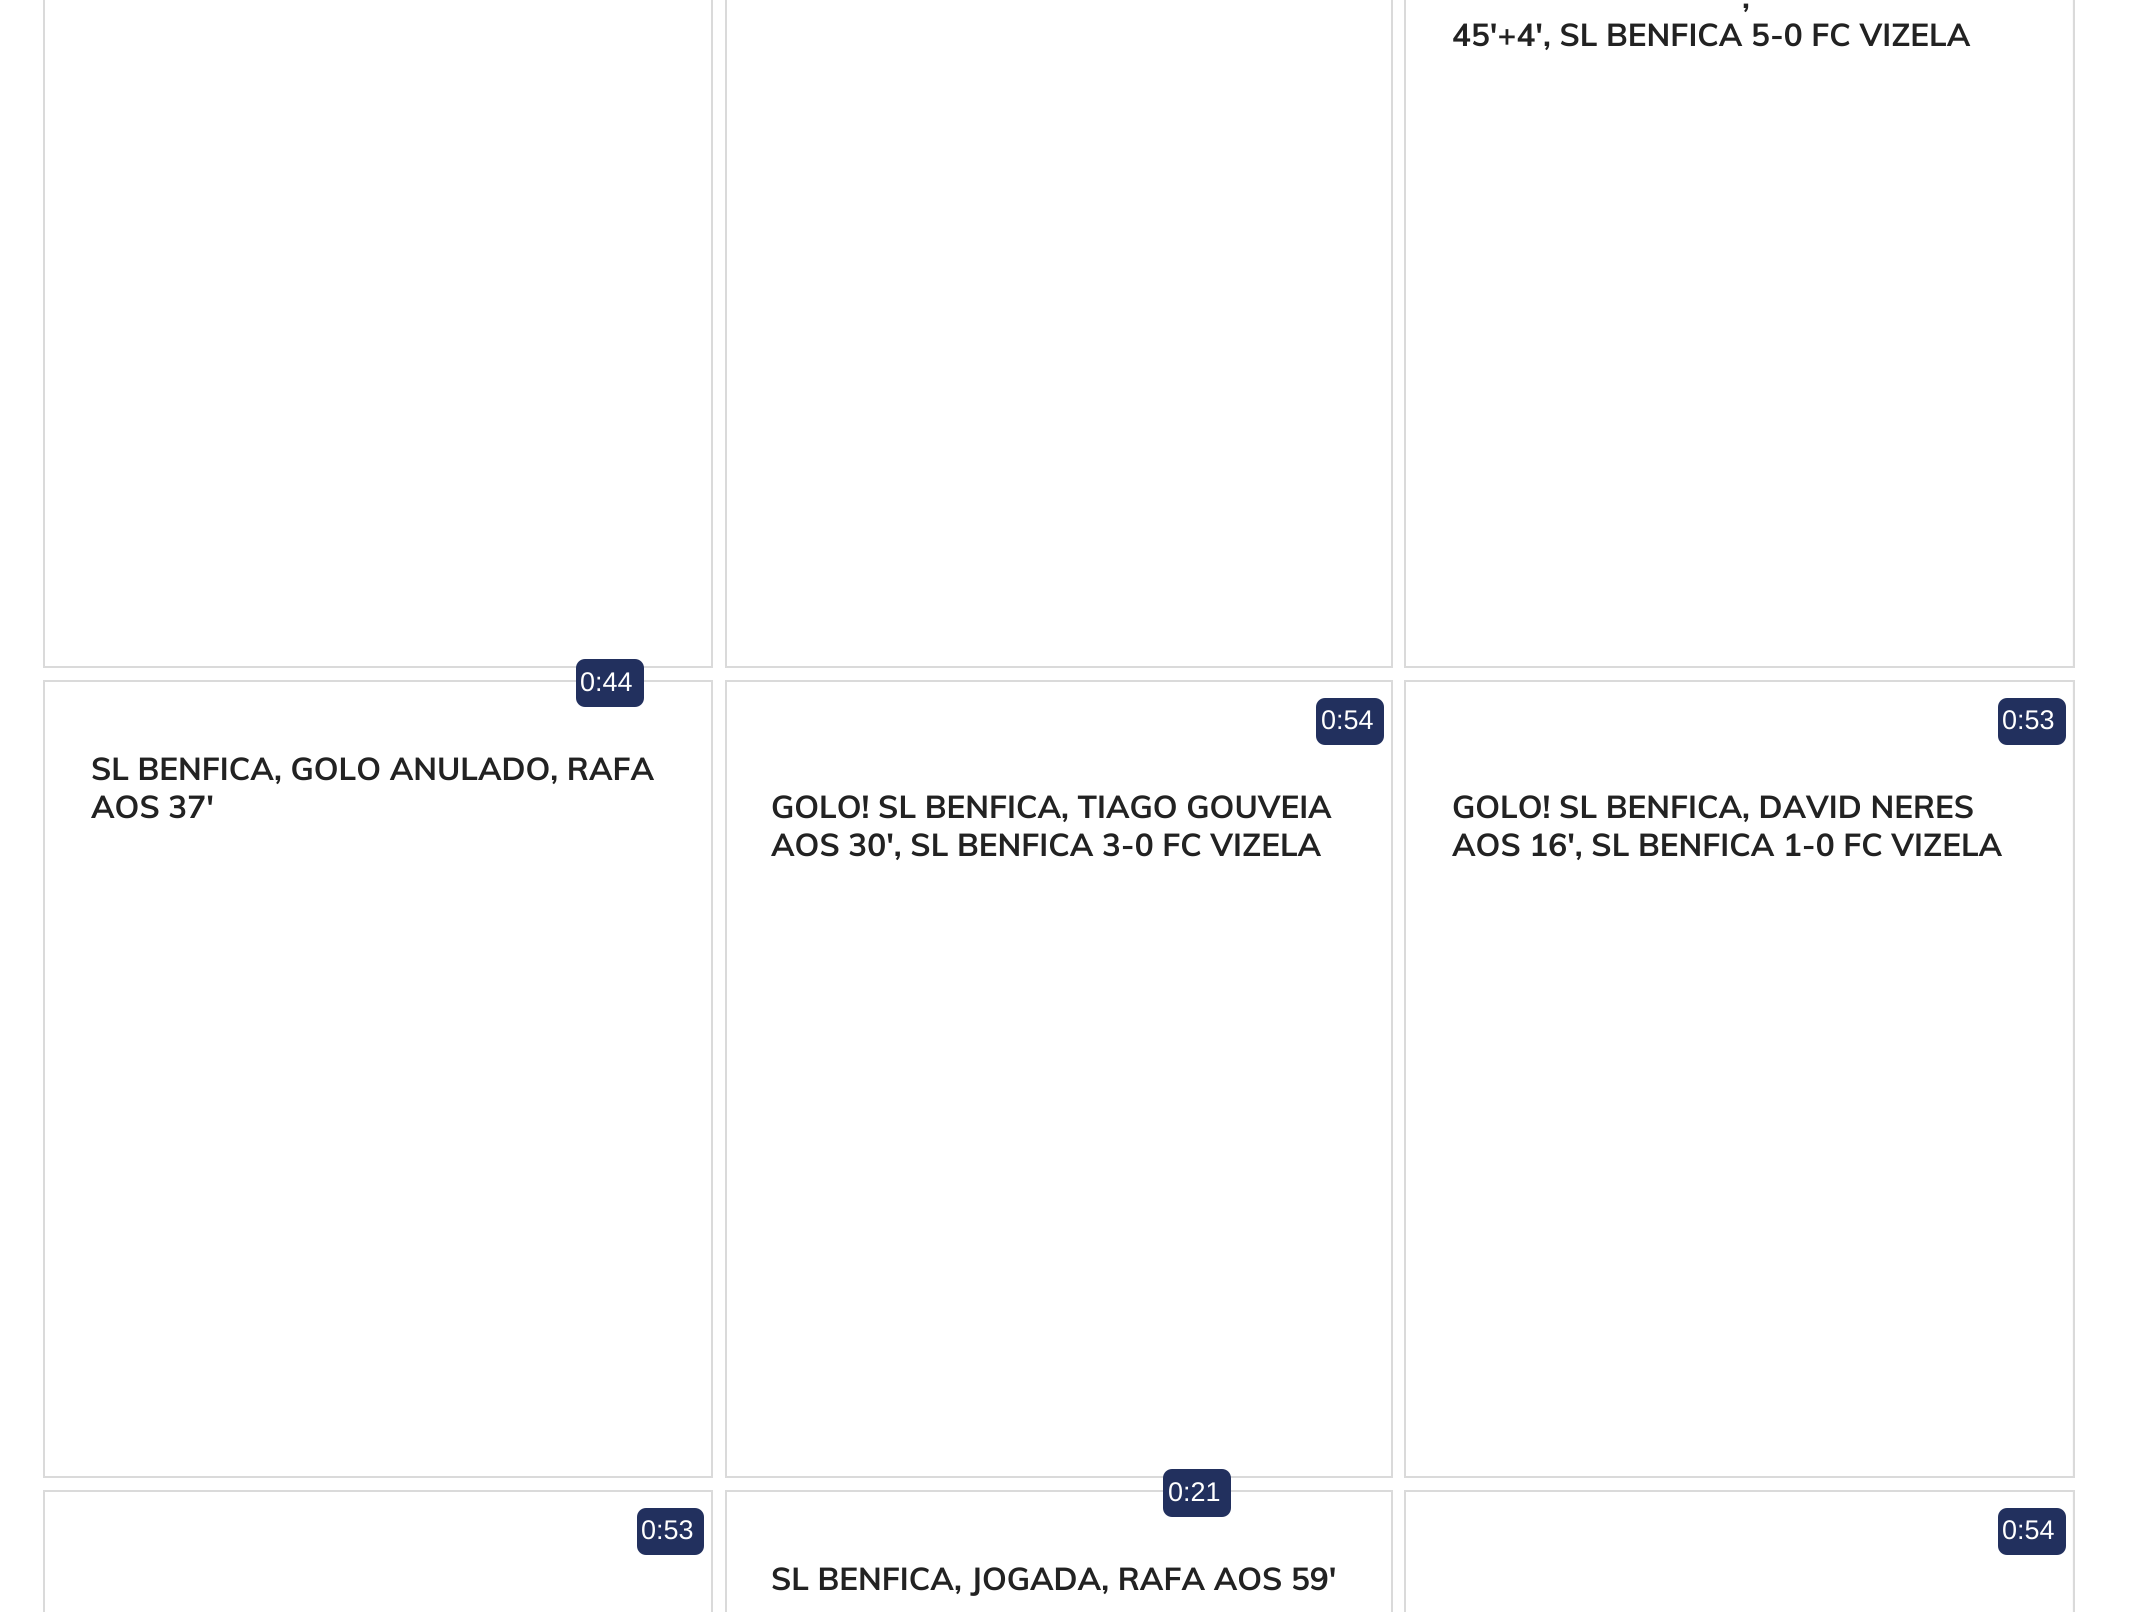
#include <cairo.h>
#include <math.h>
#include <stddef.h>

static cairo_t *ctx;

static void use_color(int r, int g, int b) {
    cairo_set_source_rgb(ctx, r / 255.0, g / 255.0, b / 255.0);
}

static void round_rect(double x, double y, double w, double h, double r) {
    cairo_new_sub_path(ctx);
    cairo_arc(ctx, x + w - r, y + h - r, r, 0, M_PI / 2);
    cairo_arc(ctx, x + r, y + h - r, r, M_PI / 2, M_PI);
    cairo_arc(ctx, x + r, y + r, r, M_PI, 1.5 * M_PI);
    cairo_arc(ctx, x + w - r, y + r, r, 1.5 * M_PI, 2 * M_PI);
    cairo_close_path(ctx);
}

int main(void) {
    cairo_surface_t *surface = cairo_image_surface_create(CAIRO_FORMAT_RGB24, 2138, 1612);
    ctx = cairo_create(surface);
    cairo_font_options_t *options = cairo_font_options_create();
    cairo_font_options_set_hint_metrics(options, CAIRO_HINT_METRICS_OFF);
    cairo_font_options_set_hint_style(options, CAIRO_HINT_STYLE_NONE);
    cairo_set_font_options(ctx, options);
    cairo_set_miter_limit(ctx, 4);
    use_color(255, 255, 255);
    cairo_paint(ctx);
    cairo_rectangle(ctx, 44, -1, 668, 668);
    use_color(218, 218, 218);
    cairo_stroke(ctx);
    cairo_rectangle(ctx, 726, -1, 666, 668);
    cairo_stroke(ctx);
    use_color(250, 250, 250);
    cairo_rectangle(ctx, 2072, 0, 1, 666);
    cairo_fill(ctx);
    cairo_rectangle(ctx, 1405, -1, 669, 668);
    use_color(218, 218, 218);
    cairo_stroke(ctx);
    cairo_select_font_face(ctx, "Muli", CAIRO_FONT_SLANT_NORMAL, CAIRO_FONT_WEIGHT_BOLD);
    cairo_set_font_size(ctx, 31.5);
    use_color(34, 34, 34);
    cairo_move_to(ctx, 1742, 8);
    cairo_show_text(ctx, ",");
    cairo_move_to(ctx, 1452, 46);
    cairo_show_text(ctx, "45'+4', SL BENFICA 5-0 FC VIZELA");
    cairo_rectangle(ctx, 44, 681, 668, 796);
    use_color(218, 218, 218);
    cairo_stroke(ctx);
    use_color(34, 48, 94);
    round_rect(576, 659, 68, 48, 9);
    cairo_fill(ctx);
    cairo_select_font_face(ctx, "Liberation Sans", CAIRO_FONT_SLANT_NORMAL, CAIRO_FONT_WEIGHT_NORMAL);
    cairo_set_font_size(ctx, 27);
    use_color(255, 255, 255);
    cairo_move_to(ctx, 580, 691);
    cairo_show_text(ctx, "0:44");
    cairo_select_font_face(ctx, "Muli", CAIRO_FONT_SLANT_NORMAL, CAIRO_FONT_WEIGHT_BOLD);
    cairo_set_font_size(ctx, 31.5);
    use_color(34, 34, 34);
    cairo_move_to(ctx, 91, 780);
    cairo_show_text(ctx, "SL BENFICA, GOLO ANULADO, RAFA");
    cairo_move_to(ctx, 91, 818);
    cairo_show_text(ctx, "AOS 37'");
    cairo_rectangle(ctx, 726, 681, 666, 796);
    use_color(218, 218, 218);
    cairo_stroke(ctx);
    use_color(34, 48, 94);
    round_rect(1316, 698, 68, 47, 9);
    cairo_fill(ctx);
    cairo_select_font_face(ctx, "Liberation Sans", CAIRO_FONT_SLANT_NORMAL, CAIRO_FONT_WEIGHT_NORMAL);
    cairo_set_font_size(ctx, 27);
    use_color(255, 255, 255);
    cairo_move_to(ctx, 1321, 729);
    cairo_show_text(ctx, "0:54");
    cairo_select_font_face(ctx, "Muli", CAIRO_FONT_SLANT_NORMAL, CAIRO_FONT_WEIGHT_BOLD);
    cairo_set_font_size(ctx, 31.5);
    use_color(34, 34, 34);
    cairo_move_to(ctx, 771, 818);
    cairo_show_text(ctx, "GOLO! SL BENFICA, TIAGO GOUVEIA");
    cairo_move_to(ctx, 771, 856);
    cairo_show_text(ctx, "AOS 30', SL BENFICA 3-0 FC VIZELA");
    use_color(250, 250, 250);
    cairo_rectangle(ctx, 2072, 682, 1, 794);
    cairo_fill(ctx);
    cairo_rectangle(ctx, 1405, 681, 669, 796);
    use_color(218, 218, 218);
    cairo_stroke(ctx);
    use_color(34, 48, 94);
    round_rect(1998, 698, 68, 47, 9);
    cairo_fill(ctx);
    cairo_select_font_face(ctx, "Liberation Sans", CAIRO_FONT_SLANT_NORMAL, CAIRO_FONT_WEIGHT_NORMAL);
    cairo_set_font_size(ctx, 27);
    use_color(255, 255, 255);
    cairo_move_to(ctx, 2002, 729);
    cairo_show_text(ctx, "0:53");
    cairo_select_font_face(ctx, "Muli", CAIRO_FONT_SLANT_NORMAL, CAIRO_FONT_WEIGHT_BOLD);
    cairo_set_font_size(ctx, 31.5);
    use_color(34, 34, 34);
    cairo_move_to(ctx, 1452, 818);
    cairo_show_text(ctx, "GOLO! SL BENFICA, DAVID NERES");
    cairo_move_to(ctx, 1452, 856);
    cairo_show_text(ctx, "AOS 16', SL BENFICA 1-0 FC VIZELA");
    cairo_rectangle(ctx, 44, 1491, 668, 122);
    use_color(218, 218, 218);
    cairo_stroke(ctx);
    use_color(34, 48, 94);
    round_rect(637, 1508, 67, 47, 9);
    cairo_fill(ctx);
    cairo_select_font_face(ctx, "Liberation Sans", CAIRO_FONT_SLANT_NORMAL, CAIRO_FONT_WEIGHT_NORMAL);
    cairo_set_font_size(ctx, 27);
    use_color(255, 255, 255);
    cairo_move_to(ctx, 641, 1539);
    cairo_show_text(ctx, "0:53");
    cairo_rectangle(ctx, 726, 1491, 666, 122);
    use_color(218, 218, 218);
    cairo_stroke(ctx);
    use_color(34, 48, 94);
    round_rect(1163, 1469, 68, 48, 9);
    cairo_fill(ctx);
    use_color(255, 255, 255);
    cairo_move_to(ctx, 1168, 1501);
    cairo_show_text(ctx, "0:21");
    cairo_select_font_face(ctx, "Muli", CAIRO_FONT_SLANT_NORMAL, CAIRO_FONT_WEIGHT_BOLD);
    cairo_set_font_size(ctx, 31.5);
    use_color(34, 34, 34);
    cairo_move_to(ctx, 771, 1590);
    cairo_show_text(ctx, "SL BENFICA, JOGADA, RAFA AOS 59'");
    use_color(250, 250, 250);
    cairo_rectangle(ctx, 2072, 1492, 1, 120);
    cairo_fill(ctx);
    cairo_rectangle(ctx, 1405, 1491, 669, 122);
    use_color(218, 218, 218);
    cairo_stroke(ctx);
    use_color(34, 48, 94);
    round_rect(1998, 1508, 68, 47, 9);
    cairo_fill(ctx);
    cairo_select_font_face(ctx, "Liberation Sans", CAIRO_FONT_SLANT_NORMAL, CAIRO_FONT_WEIGHT_NORMAL);
    cairo_set_font_size(ctx, 27);
    use_color(255, 255, 255);
    cairo_move_to(ctx, 2002, 1539);
    cairo_show_text(ctx, "0:54");
    cairo_surface_write_to_png(surface, "result.png");
    cairo_font_options_destroy(options);
    cairo_destroy(ctx);
    cairo_surface_destroy(surface);
    return 0;
}
